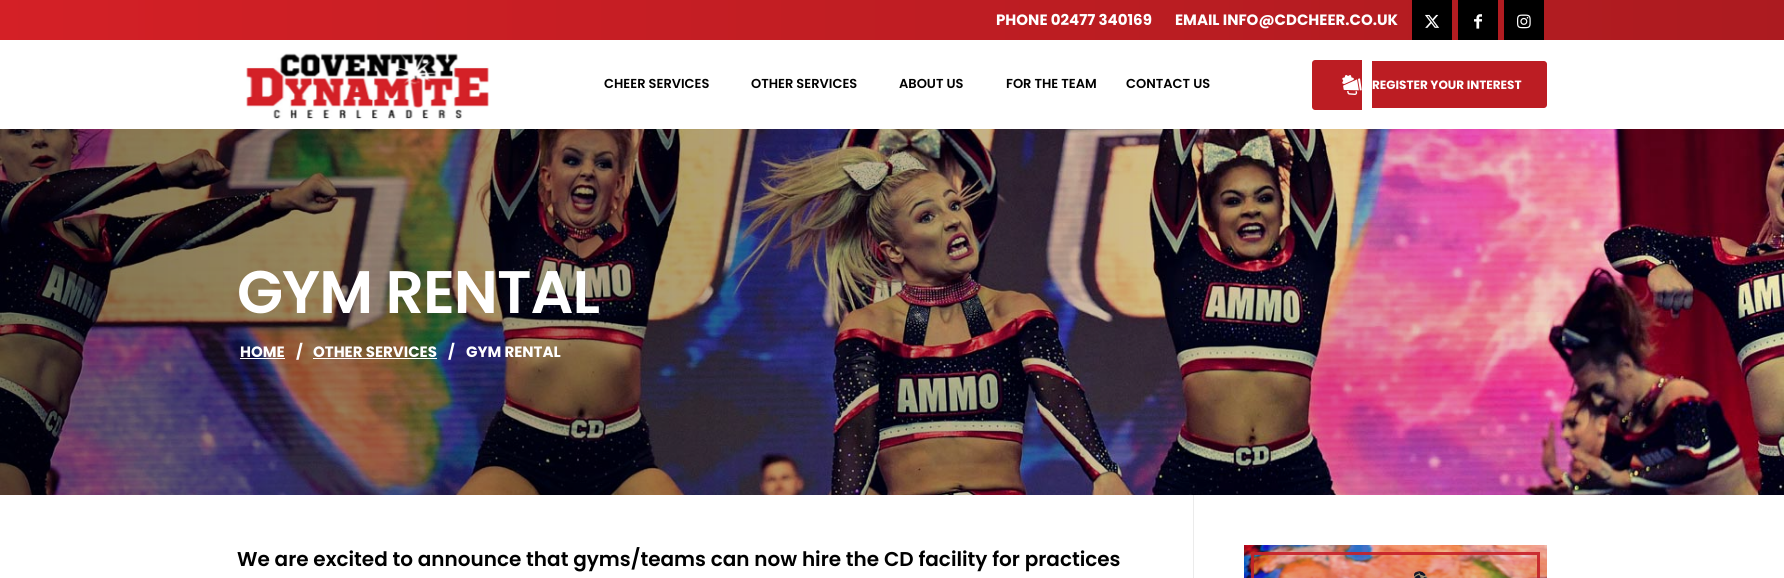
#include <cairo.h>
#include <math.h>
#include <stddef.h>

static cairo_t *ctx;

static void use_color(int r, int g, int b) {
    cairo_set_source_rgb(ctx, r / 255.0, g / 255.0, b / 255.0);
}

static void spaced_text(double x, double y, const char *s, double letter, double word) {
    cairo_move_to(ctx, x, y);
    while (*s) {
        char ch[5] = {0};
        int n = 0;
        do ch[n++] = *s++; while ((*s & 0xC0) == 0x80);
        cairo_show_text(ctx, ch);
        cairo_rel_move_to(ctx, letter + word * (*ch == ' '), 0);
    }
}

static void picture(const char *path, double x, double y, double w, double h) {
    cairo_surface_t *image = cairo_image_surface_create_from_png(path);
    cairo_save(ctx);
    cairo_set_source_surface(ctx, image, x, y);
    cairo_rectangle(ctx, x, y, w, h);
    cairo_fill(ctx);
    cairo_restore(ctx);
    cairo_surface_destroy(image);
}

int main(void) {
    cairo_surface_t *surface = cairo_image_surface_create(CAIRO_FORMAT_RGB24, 1784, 578);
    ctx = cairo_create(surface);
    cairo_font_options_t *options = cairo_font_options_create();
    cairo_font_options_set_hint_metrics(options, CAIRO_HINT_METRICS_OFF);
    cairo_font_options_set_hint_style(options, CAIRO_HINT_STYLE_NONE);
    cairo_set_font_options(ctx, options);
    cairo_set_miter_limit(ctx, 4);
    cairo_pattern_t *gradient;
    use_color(255, 255, 255);
    cairo_paint(ctx);
    gradient = cairo_pattern_create_linear(0, 20, 1784, 20);
    cairo_pattern_add_color_stop_rgba(gradient, 0, 0.831, 0.125, 0.149, 1);
    cairo_pattern_add_color_stop_rgba(gradient, 1, 0.675, 0.106, 0.125, 1);
    cairo_set_source(ctx, gradient);
    cairo_pattern_destroy(gradient);
    cairo_rectangle(ctx, 0, 0, 1784, 40);
    cairo_fill(ctx);
    cairo_select_font_face(ctx, "Poppins", CAIRO_FONT_SLANT_NORMAL, CAIRO_FONT_WEIGHT_BOLD);
    cairo_set_font_size(ctx, 15);
    use_color(255, 255, 255);
    cairo_move_to(ctx, 996, 25);
    cairo_show_text(ctx, "PHONE 02477 340169");
    cairo_move_to(ctx, 1175, 25);
    cairo_show_text(ctx, "EMAIL INFO@CDCHEER.CO.UK");
    use_color(0, 0, 0);
    cairo_rectangle(ctx, 1412, 0, 40, 40);
    cairo_fill(ctx);
    picture("img1.png", 1425, 14, 15, 14);
    cairo_rectangle(ctx, 1458, 0, 40, 40);
    cairo_fill(ctx);
    picture("img2.png", 1474, 14, 8, 15);
    cairo_rectangle(ctx, 1504, 0, 40, 40);
    cairo_fill(ctx);
    picture("img3.png", 1517, 14, 14, 15);
    picture("img4.png", 246, 53, 243, 66);
    cairo_select_font_face(ctx, "Poppins SemiBold", CAIRO_FONT_SLANT_NORMAL, CAIRO_FONT_WEIGHT_NORMAL);
    cairo_set_font_size(ctx, 13);
    cairo_move_to(ctx, 604, 88);
    cairo_show_text(ctx, "CHEER SERVICES");
    cairo_move_to(ctx, 751, 88);
    cairo_show_text(ctx, "OTHER SERVICES");
    cairo_move_to(ctx, 899, 88);
    cairo_show_text(ctx, "ABOUT US");
    cairo_move_to(ctx, 1006, 88);
    cairo_show_text(ctx, "FOR THE TEAM");
    cairo_move_to(ctx, 1126, 88);
    cairo_show_text(ctx, "CONTACT US");
    use_color(188, 29, 35);
    cairo_new_path(ctx);
    cairo_move_to(ctx, 1315, 60);
    cairo_line_to(ctx, 1362, 60);
    cairo_line_to(ctx, 1362, 110);
    cairo_line_to(ctx, 1315, 110);
    cairo_curve_to(ctx, 1313.5, 110, 1312, 108.5, 1312, 107);
    cairo_line_to(ctx, 1312, 63);
    cairo_curve_to(ctx, 1312, 61.5, 1313.5, 60, 1315, 60);
    cairo_close_path(ctx);
    cairo_fill(ctx);
    cairo_new_path(ctx);
    cairo_move_to(ctx, 1372, 61);
    cairo_line_to(ctx, 1544, 61);
    cairo_curve_to(ctx, 1545.5, 61, 1547, 62.5, 1547, 64);
    cairo_line_to(ctx, 1547, 105);
    cairo_curve_to(ctx, 1547, 106.5, 1545.5, 108, 1544, 108);
    cairo_line_to(ctx, 1372, 108);
    cairo_close_path(ctx);
    cairo_fill(ctx);
    picture("img5.png", 1342, 75, 20, 20);
    cairo_select_font_face(ctx, "Poppins", CAIRO_FONT_SLANT_NORMAL, CAIRO_FONT_WEIGHT_BOLD);
    cairo_set_font_size(ctx, 12);
    use_color(255, 255, 255);
    cairo_move_to(ctx, 1372, 89);
    cairo_show_text(ctx, "REGISTER YOUR INTEREST");
    picture("img6.png", 0, 129, 1784, 366);
    gradient = cairo_pattern_create_linear(1784, 329, 0, 329);
    cairo_pattern_add_color_stop_rgba(gradient, 0, 0, 0, 0, 0);
    cairo_pattern_add_color_stop_rgba(gradient, 1, 0, 0, 0, 0.5);
    cairo_set_source(ctx, gradient);
    cairo_pattern_destroy(gradient);
    cairo_rectangle(ctx, 0, 129, 1707, 366);
    cairo_fill(ctx);
    cairo_select_font_face(ctx, "Poppins SemiBold", CAIRO_FONT_SLANT_NORMAL, CAIRO_FONT_WEIGHT_NORMAL);
    cairo_set_font_size(ctx, 60);
    use_color(255, 255, 255);
    spaced_text(237, 313, "GYM RENTAL", -1, 0);
    cairo_select_font_face(ctx, "Poppins", CAIRO_FONT_SLANT_NORMAL, CAIRO_FONT_WEIGHT_BOLD);
    cairo_set_font_size(ctx, 15);
    cairo_move_to(ctx, 240, 357);
    cairo_show_text(ctx, "HOME");
    cairo_rectangle(ctx, 240, 358, 45, 1);
    cairo_fill(ctx);
    cairo_move_to(ctx, 296, 357);
    cairo_show_text(ctx, "/");
    cairo_move_to(ctx, 313, 357);
    cairo_show_text(ctx, "OTHER SERVICES");
    cairo_rectangle(ctx, 313, 358, 124, 1);
    cairo_fill(ctx);
    cairo_move_to(ctx, 448, 357);
    cairo_show_text(ctx, "/");
    cairo_move_to(ctx, 466, 357);
    cairo_show_text(ctx, "GYM RENTAL");
    use_color(235, 235, 235);
    cairo_rectangle(ctx, 1193, 495, 1, 83);
    cairo_fill(ctx);
    cairo_select_font_face(ctx, "Poppins SemiBold", CAIRO_FONT_SLANT_NORMAL, CAIRO_FONT_WEIGHT_NORMAL);
    cairo_set_font_size(ctx, 20);
    use_color(0, 0, 0);
    cairo_move_to(ctx, 237, 566);
    cairo_show_text(ctx, "We are excited to announce that gyms/teams can now hire the CD facility for practices");
    picture("img7.png", 1244, 545, 303, 33);
    cairo_rectangle(ctx, 1252.5, 553.5, 286, 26);
    cairo_set_source_rgba(ctx, 0.831, 0.125, 0.149, 0.9);
    cairo_set_line_width(ctx, 3);
    cairo_stroke(ctx);
    gradient = cairo_pattern_create_linear(1396, 545, 1396, 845);
    cairo_pattern_add_color_stop_rgba(gradient, 0, 0, 0.184, 0.294, 0.05);
    cairo_pattern_add_color_stop_rgba(gradient, 1, 0, 0, 0, 0.5);
    cairo_set_source(ctx, gradient);
    cairo_pattern_destroy(gradient);
    cairo_rectangle(ctx, 1244, 545, 303, 33);
    cairo_fill(ctx);
    cairo_surface_write_to_png(surface, "result.png");
    cairo_font_options_destroy(options);
    cairo_destroy(ctx);
    cairo_surface_destroy(surface);
    return 0;
}
